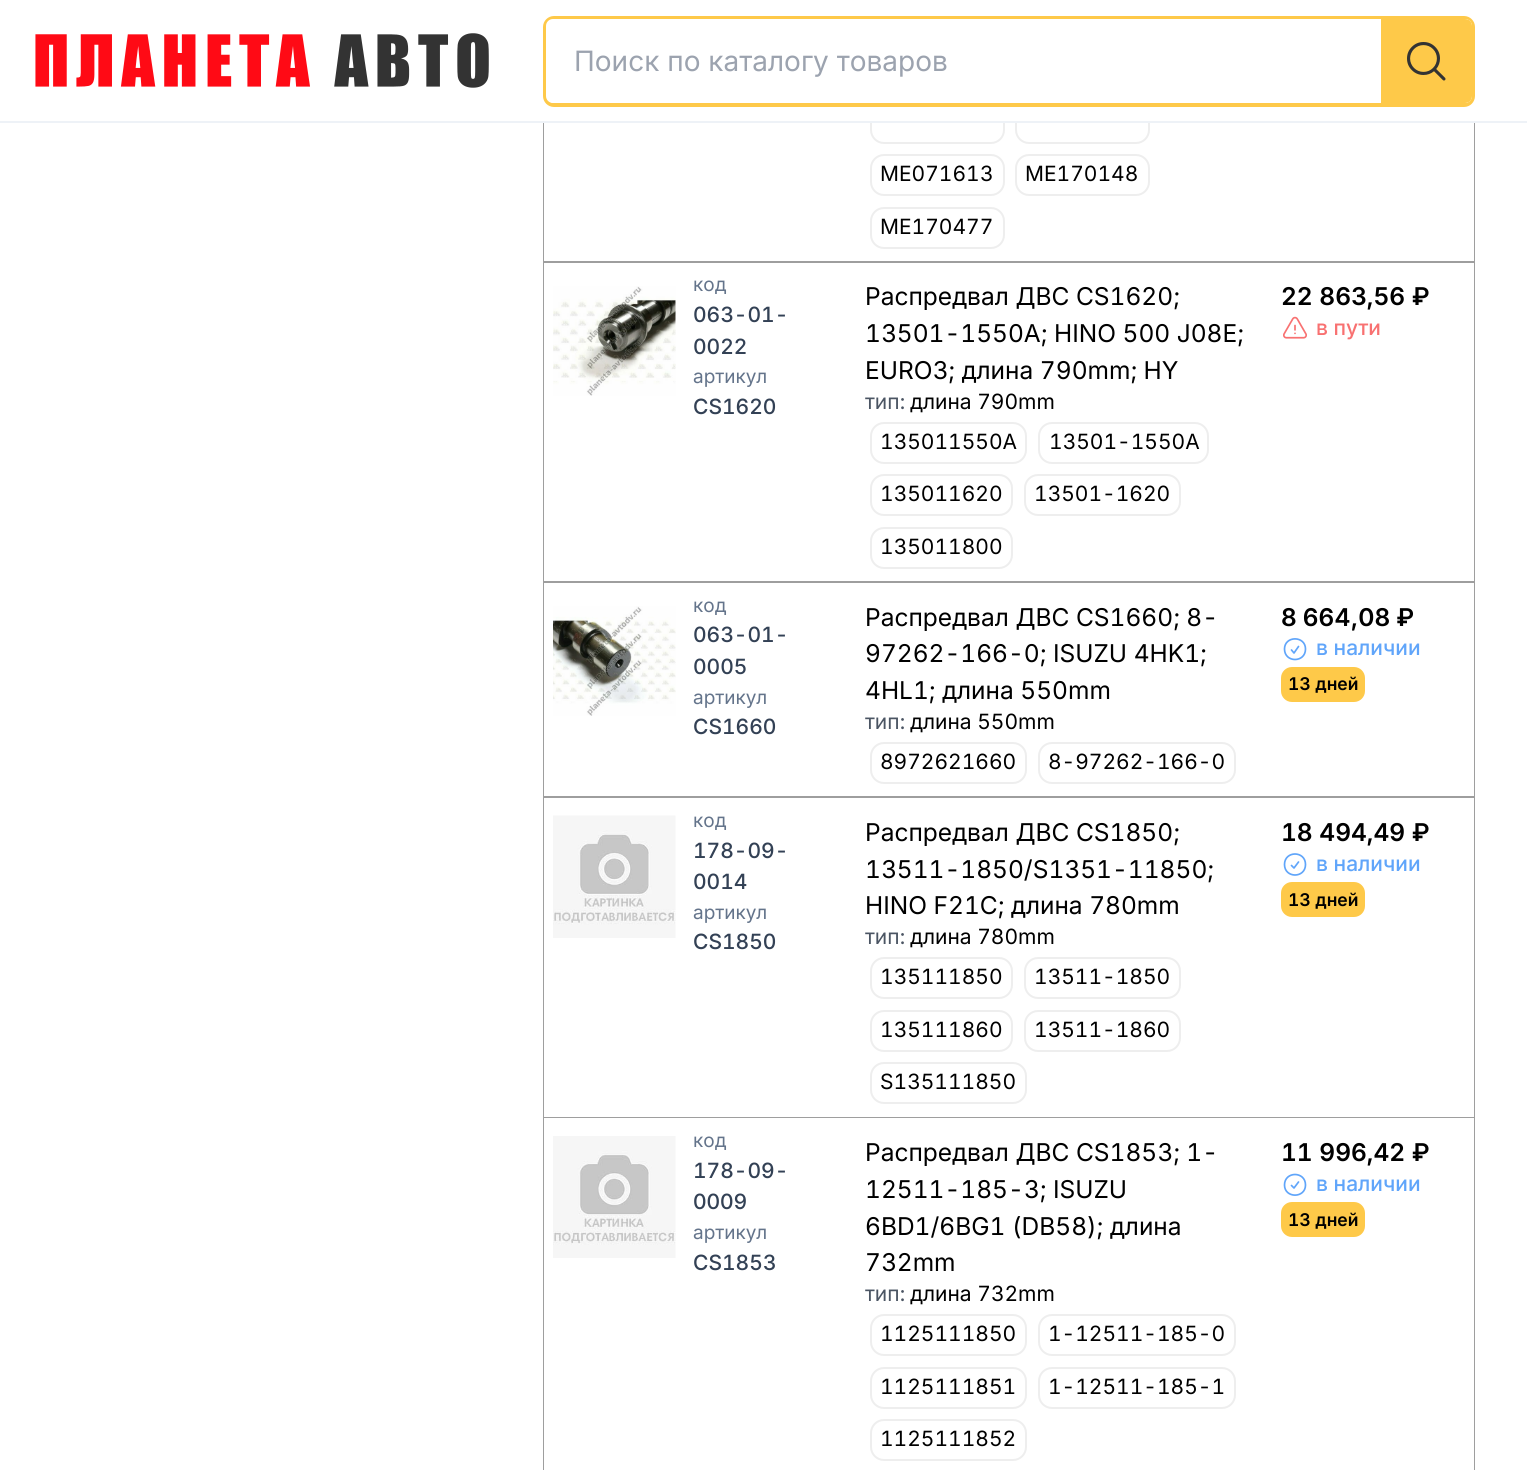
#include <cairo.h>
#include <math.h>
#include <stddef.h>

static cairo_t *ctx;

static void use_color(int r, int g, int b) {
    cairo_set_source_rgb(ctx, r / 255.0, g / 255.0, b / 255.0);
}

static void round_rect(double x, double y, double w, double h, double r) {
    cairo_new_sub_path(ctx);
    cairo_arc(ctx, x + w - r, y + h - r, r, 0, M_PI / 2);
    cairo_arc(ctx, x + r, y + h - r, r, M_PI / 2, M_PI);
    cairo_arc(ctx, x + r, y + r, r, M_PI, 1.5 * M_PI);
    cairo_arc(ctx, x + w - r, y + r, r, 1.5 * M_PI, 2 * M_PI);
    cairo_close_path(ctx);
}

static void picture(const char *path, double x, double y, double w, double h) {
    cairo_surface_t *image = cairo_image_surface_create_from_png(path);
    cairo_save(ctx);
    cairo_set_source_surface(ctx, image, x, y);
    cairo_rectangle(ctx, x, y, w, h);
    cairo_fill(ctx);
    cairo_restore(ctx);
    cairo_surface_destroy(image);
}

int main(void) {
    cairo_surface_t *surface = cairo_image_surface_create(CAIRO_FORMAT_RGB24, 1527, 1470);
    ctx = cairo_create(surface);
    cairo_font_options_t *options = cairo_font_options_create();
    cairo_font_options_set_hint_metrics(options, CAIRO_HINT_METRICS_OFF);
    cairo_font_options_set_hint_style(options, CAIRO_HINT_STYLE_NONE);
    cairo_set_font_options(ctx, options);
    cairo_set_miter_limit(ctx, 4);
    use_color(255, 255, 255);
    cairo_paint(ctx);
    cairo_rectangle(ctx, 544, -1, 930, 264);
    use_color(158, 158, 158);
    cairo_stroke(ctx);
    use_color(255, 255, 255);
    cairo_rectangle(ctx, 544, 123, 930, 138);
    cairo_fill(ctx);
    round_rect(871, 103, 133, 40, 13);
    use_color(238, 238, 238);
    cairo_stroke(ctx);
    round_rect(1016, 103, 133, 40, 13);
    cairo_stroke(ctx);
    use_color(255, 255, 255);
    cairo_rectangle(ctx, 543, 0, 932, 121);
    cairo_fill(ctx);
    use_color(238, 242, 247);
    cairo_rectangle(ctx, 0, 121, 1527, 2);
    cairo_fill(ctx);
    picture("img1.png", 35, 33, 454, 55);
    round_rect(545, 18, 928, 87, 9);
    use_color(254, 201, 73);
    cairo_set_line_width(ctx, 4);
    cairo_stroke(ctx);
    use_color(255, 255, 255);
    round_rect(546, 19, 926, 84, 7);
    cairo_fill(ctx);
    cairo_select_font_face(ctx, "Inter", CAIRO_FONT_SLANT_NORMAL, CAIRO_FONT_WEIGHT_NORMAL);
    cairo_set_font_size(ctx, 28);
    use_color(156, 163, 175);
    cairo_move_to(ctx, 574, 71);
    cairo_show_text(ctx, "Поиск по каталогу товаров");
    use_color(254, 201, 73);
    cairo_new_path(ctx);
    cairo_move_to(ctx, 1381, 19);
    cairo_line_to(ctx, 1465, 19);
    cairo_curve_to(ctx, 1469, 19, 1472, 22, 1472, 26);
    cairo_line_to(ctx, 1472, 96);
    cairo_curve_to(ctx, 1472, 100, 1469, 103, 1465, 103);
    cairo_line_to(ctx, 1381, 103);
    cairo_close_path(ctx);
    cairo_fill(ctx);
    picture("img2.png", 1407, 42, 39, 39);
    round_rect(871, 155, 133, 40, 13);
    use_color(238, 238, 238);
    cairo_set_line_width(ctx, 2);
    cairo_stroke(ctx);
    cairo_select_font_face(ctx, "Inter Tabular", CAIRO_FONT_SLANT_NORMAL, CAIRO_FONT_WEIGHT_NORMAL);
    cairo_set_font_size(ctx, 21);
    use_color(0, 0, 0);
    cairo_move_to(ctx, 880, 181);
    cairo_show_text(ctx, "ME071613");
    round_rect(1016, 155, 133, 40, 13);
    use_color(238, 238, 238);
    cairo_stroke(ctx);
    use_color(0, 0, 0);
    cairo_move_to(ctx, 1025, 181);
    cairo_show_text(ctx, "ME170148");
    round_rect(871, 208, 133, 40, 13);
    use_color(238, 238, 238);
    cairo_stroke(ctx);
    use_color(0, 0, 0);
    cairo_move_to(ctx, 880, 234);
    cairo_show_text(ctx, "ME170477");
    cairo_rectangle(ctx, 544, 262, 930, 322);
    use_color(158, 158, 158);
    cairo_stroke(ctx);
    use_color(255, 255, 255);
    cairo_rectangle(ctx, 544, 263, 930, 318);
    cairo_fill(ctx);
    picture("img3.png", 553, 286, 123, 110);
    cairo_select_font_face(ctx, "Inter", CAIRO_FONT_SLANT_NORMAL, CAIRO_FONT_WEIGHT_NORMAL);
    cairo_set_font_size(ctx, 19);
    use_color(100, 116, 139);
    cairo_move_to(ctx, 693, 291);
    cairo_show_text(ctx, "код");
    cairo_select_font_face(ctx, "Inter Tabular Medium", CAIRO_FONT_SLANT_NORMAL, CAIRO_FONT_WEIGHT_NORMAL);
    cairo_set_font_size(ctx, 21);
    use_color(51, 65, 85);
    cairo_move_to(ctx, 693, 322);
    cairo_show_text(ctx, "063-01-");
    cairo_move_to(ctx, 693, 354);
    cairo_show_text(ctx, "0022");
    cairo_select_font_face(ctx, "Inter", CAIRO_FONT_SLANT_NORMAL, CAIRO_FONT_WEIGHT_NORMAL);
    cairo_set_font_size(ctx, 19);
    use_color(100, 116, 139);
    cairo_move_to(ctx, 693, 383);
    cairo_show_text(ctx, "артикул");
    cairo_select_font_face(ctx, "Inter Tabular Medium", CAIRO_FONT_SLANT_NORMAL, CAIRO_FONT_WEIGHT_NORMAL);
    cairo_set_font_size(ctx, 21);
    use_color(51, 65, 85);
    cairo_move_to(ctx, 693, 414);
    cairo_show_text(ctx, "CS1620");
    cairo_select_font_face(ctx, "Inter Tabular", CAIRO_FONT_SLANT_NORMAL, CAIRO_FONT_WEIGHT_NORMAL);
    cairo_set_font_size(ctx, 24.5);
    use_color(0, 0, 0);
    cairo_move_to(ctx, 865, 305);
    cairo_show_text(ctx, "Распредвал ДВС CS1620;");
    cairo_move_to(ctx, 865, 342);
    cairo_show_text(ctx, "13501-1550A; HINO 500 J08E;");
    cairo_move_to(ctx, 865, 379);
    cairo_show_text(ctx, "EURO3; длина 790mm; HY");
    cairo_select_font_face(ctx, "Inter", CAIRO_FONT_SLANT_NORMAL, CAIRO_FONT_WEIGHT_NORMAL);
    cairo_set_font_size(ctx, 21);
    use_color(75, 85, 99);
    cairo_move_to(ctx, 865, 409);
    cairo_show_text(ctx, "тип:");
    cairo_select_font_face(ctx, "Inter Tabular", CAIRO_FONT_SLANT_NORMAL, CAIRO_FONT_WEIGHT_NORMAL);
    use_color(0, 0, 0);
    cairo_move_to(ctx, 910, 409);
    cairo_show_text(ctx, "длина 790mm");
    round_rect(871, 423, 155, 40, 13);
    use_color(238, 238, 238);
    cairo_stroke(ctx);
    use_color(0, 0, 0);
    cairo_move_to(ctx, 880, 449);
    cairo_show_text(ctx, "135011550A");
    round_rect(1039, 423, 169, 40, 13);
    use_color(238, 238, 238);
    cairo_stroke(ctx);
    use_color(0, 0, 0);
    cairo_move_to(ctx, 1049, 449);
    cairo_show_text(ctx, "13501-1550A");
    round_rect(871, 475, 141, 40, 13);
    use_color(238, 238, 238);
    cairo_stroke(ctx);
    use_color(0, 0, 0);
    cairo_move_to(ctx, 880, 501);
    cairo_show_text(ctx, "135011620");
    round_rect(1025, 475, 155, 40, 13);
    use_color(238, 238, 238);
    cairo_stroke(ctx);
    use_color(0, 0, 0);
    cairo_move_to(ctx, 1034, 501);
    cairo_show_text(ctx, "13501-1620");
    round_rect(871, 528, 141, 40, 13);
    use_color(238, 238, 238);
    cairo_stroke(ctx);
    use_color(0, 0, 0);
    cairo_move_to(ctx, 880, 554);
    cairo_show_text(ctx, "135011800");
    cairo_select_font_face(ctx, "Inter Tabular SemiBold", CAIRO_FONT_SLANT_NORMAL, CAIRO_FONT_WEIGHT_NORMAL);
    cairo_set_font_size(ctx, 24.5);
    cairo_move_to(ctx, 1281, 305);
    cairo_show_text(ctx, "22 863,56 ₽");
    picture("img4.png", 1283, 316, 24, 23);
    cairo_select_font_face(ctx, "Inter Medium", CAIRO_FONT_SLANT_NORMAL, CAIRO_FONT_WEIGHT_NORMAL);
    cairo_set_font_size(ctx, 21);
    use_color(248, 113, 113);
    cairo_move_to(ctx, 1316, 335);
    cairo_show_text(ctx, "в пути");
    cairo_rectangle(ctx, 544, 582, 930, 217);
    use_color(158, 158, 158);
    cairo_stroke(ctx);
    use_color(255, 255, 255);
    cairo_rectangle(ctx, 544, 583, 930, 213);
    cairo_fill(ctx);
    picture("img5.png", 553, 606, 123, 110);
    cairo_select_font_face(ctx, "Inter", CAIRO_FONT_SLANT_NORMAL, CAIRO_FONT_WEIGHT_NORMAL);
    cairo_set_font_size(ctx, 19);
    use_color(100, 116, 139);
    cairo_move_to(ctx, 693, 612);
    cairo_show_text(ctx, "код");
    cairo_select_font_face(ctx, "Inter Tabular Medium", CAIRO_FONT_SLANT_NORMAL, CAIRO_FONT_WEIGHT_NORMAL);
    cairo_set_font_size(ctx, 21);
    use_color(51, 65, 85);
    cairo_move_to(ctx, 693, 642);
    cairo_show_text(ctx, "063-01-");
    cairo_move_to(ctx, 693, 674);
    cairo_show_text(ctx, "0005");
    cairo_select_font_face(ctx, "Inter", CAIRO_FONT_SLANT_NORMAL, CAIRO_FONT_WEIGHT_NORMAL);
    cairo_set_font_size(ctx, 19);
    use_color(100, 116, 139);
    cairo_move_to(ctx, 693, 704);
    cairo_show_text(ctx, "артикул");
    cairo_select_font_face(ctx, "Inter Tabular Medium", CAIRO_FONT_SLANT_NORMAL, CAIRO_FONT_WEIGHT_NORMAL);
    cairo_set_font_size(ctx, 21);
    use_color(51, 65, 85);
    cairo_move_to(ctx, 693, 734);
    cairo_show_text(ctx, "CS1660");
    cairo_select_font_face(ctx, "Inter Tabular", CAIRO_FONT_SLANT_NORMAL, CAIRO_FONT_WEIGHT_NORMAL);
    cairo_set_font_size(ctx, 24.5);
    use_color(0, 0, 0);
    cairo_move_to(ctx, 865, 626);
    cairo_show_text(ctx, "Распредвал ДВС CS1660; 8-");
    cairo_move_to(ctx, 865, 662);
    cairo_show_text(ctx, "97262-166-0; ISUZU 4HK1;");
    cairo_move_to(ctx, 865, 699);
    cairo_show_text(ctx, "4HL1; длина 550mm");
    cairo_select_font_face(ctx, "Inter", CAIRO_FONT_SLANT_NORMAL, CAIRO_FONT_WEIGHT_NORMAL);
    cairo_set_font_size(ctx, 21);
    use_color(75, 85, 99);
    cairo_move_to(ctx, 865, 729);
    cairo_show_text(ctx, "тип:");
    cairo_select_font_face(ctx, "Inter Tabular", CAIRO_FONT_SLANT_NORMAL, CAIRO_FONT_WEIGHT_NORMAL);
    use_color(0, 0, 0);
    cairo_move_to(ctx, 910, 729);
    cairo_show_text(ctx, "длина 550mm");
    round_rect(871, 743, 155, 40, 13);
    use_color(238, 238, 238);
    cairo_stroke(ctx);
    use_color(0, 0, 0);
    cairo_move_to(ctx, 880, 769);
    cairo_show_text(ctx, "8972621660");
    round_rect(1039, 743, 196, 40, 13);
    use_color(238, 238, 238);
    cairo_stroke(ctx);
    use_color(0, 0, 0);
    cairo_move_to(ctx, 1048, 769);
    cairo_show_text(ctx, "8-97262-166-0");
    cairo_select_font_face(ctx, "Inter SemiBold", CAIRO_FONT_SLANT_NORMAL, CAIRO_FONT_WEIGHT_NORMAL);
    cairo_set_font_size(ctx, 24.5);
    cairo_move_to(ctx, 1281, 626);
    cairo_show_text(ctx, "8 664,08 ₽");
    cairo_new_path(ctx);
    cairo_move_to(ctx, 1291.5, 650);
    cairo_line_to(ctx, 1294, 653);
    cairo_line_to(ctx, 1298.5, 646.5);
    cairo_move_to(ctx, 1305.5, 649);
    cairo_curve_to(ctx, 1305.5, 663, 1284.5, 663, 1284.5, 649);
    cairo_curve_to(ctx, 1284.5, 635.5, 1305.5, 635.5, 1305.5, 649);
    cairo_close_path(ctx);
    use_color(96, 165, 250);
    cairo_set_line_width(ctx, 1.7);
    cairo_set_line_cap(ctx, CAIRO_LINE_CAP_ROUND);
    cairo_set_line_join(ctx, CAIRO_LINE_JOIN_ROUND);
    cairo_stroke(ctx);
    cairo_select_font_face(ctx, "Inter Medium", CAIRO_FONT_SLANT_NORMAL, CAIRO_FONT_WEIGHT_NORMAL);
    cairo_set_font_size(ctx, 21);
    cairo_move_to(ctx, 1316, 655);
    cairo_show_text(ctx, "в наличии");
    use_color(254, 201, 73);
    round_rect(1281, 667, 84, 35, 11);
    cairo_fill(ctx);
    cairo_select_font_face(ctx, "Inter Tabular SemiBold", CAIRO_FONT_SLANT_NORMAL, CAIRO_FONT_WEIGHT_NORMAL);
    cairo_set_font_size(ctx, 17.5);
    use_color(0, 0, 0);
    cairo_move_to(ctx, 1288, 690);
    cairo_show_text(ctx, "13 дней");
    cairo_rectangle(ctx, 544, 797, 930, 322);
    use_color(158, 158, 158);
    cairo_set_line_width(ctx, 2);
    cairo_set_line_cap(ctx, CAIRO_LINE_CAP_BUTT);
    cairo_set_line_join(ctx, CAIRO_LINE_JOIN_MITER);
    cairo_stroke(ctx);
    use_color(255, 255, 255);
    cairo_rectangle(ctx, 544, 798, 930, 319);
    cairo_fill(ctx);
    picture("img6.png", 553, 815, 123, 123);
    cairo_select_font_face(ctx, "Inter", CAIRO_FONT_SLANT_NORMAL, CAIRO_FONT_WEIGHT_NORMAL);
    cairo_set_font_size(ctx, 19);
    use_color(100, 116, 139);
    cairo_move_to(ctx, 693, 827);
    cairo_show_text(ctx, "код");
    cairo_select_font_face(ctx, "Inter Tabular Medium", CAIRO_FONT_SLANT_NORMAL, CAIRO_FONT_WEIGHT_NORMAL);
    cairo_set_font_size(ctx, 21);
    use_color(51, 65, 85);
    cairo_move_to(ctx, 693, 858);
    cairo_show_text(ctx, "178-09-");
    cairo_move_to(ctx, 693, 889);
    cairo_show_text(ctx, "0014");
    cairo_select_font_face(ctx, "Inter", CAIRO_FONT_SLANT_NORMAL, CAIRO_FONT_WEIGHT_NORMAL);
    cairo_set_font_size(ctx, 19);
    use_color(100, 116, 139);
    cairo_move_to(ctx, 693, 919);
    cairo_show_text(ctx, "артикул");
    cairo_select_font_face(ctx, "Inter Tabular Medium", CAIRO_FONT_SLANT_NORMAL, CAIRO_FONT_WEIGHT_NORMAL);
    cairo_set_font_size(ctx, 21);
    use_color(51, 65, 85);
    cairo_move_to(ctx, 693, 949);
    cairo_show_text(ctx, "CS1850");
    cairo_select_font_face(ctx, "Inter Tabular", CAIRO_FONT_SLANT_NORMAL, CAIRO_FONT_WEIGHT_NORMAL);
    cairo_set_font_size(ctx, 24.5);
    use_color(0, 0, 0);
    cairo_move_to(ctx, 865, 841);
    cairo_show_text(ctx, "Распредвал ДВС CS1850;");
    cairo_move_to(ctx, 865, 878);
    cairo_show_text(ctx, "13511-1850/S1351-11850;");
    cairo_move_to(ctx, 865, 914);
    cairo_show_text(ctx, "HINO F21C; длина 780mm");
    cairo_select_font_face(ctx, "Inter", CAIRO_FONT_SLANT_NORMAL, CAIRO_FONT_WEIGHT_NORMAL);
    cairo_set_font_size(ctx, 21);
    use_color(75, 85, 99);
    cairo_move_to(ctx, 865, 944);
    cairo_show_text(ctx, "тип:");
    cairo_select_font_face(ctx, "Inter Tabular", CAIRO_FONT_SLANT_NORMAL, CAIRO_FONT_WEIGHT_NORMAL);
    use_color(0, 0, 0);
    cairo_move_to(ctx, 910, 944);
    cairo_show_text(ctx, "длина 780mm");
    round_rect(871, 958, 141, 40, 13);
    use_color(238, 238, 238);
    cairo_stroke(ctx);
    use_color(0, 0, 0);
    cairo_move_to(ctx, 880, 984);
    cairo_show_text(ctx, "135111850");
    round_rect(1025, 958, 155, 40, 13);
    use_color(238, 238, 238);
    cairo_stroke(ctx);
    use_color(0, 0, 0);
    cairo_move_to(ctx, 1034, 984);
    cairo_show_text(ctx, "13511-1850");
    round_rect(871, 1011, 141, 40, 13);
    use_color(238, 238, 238);
    cairo_stroke(ctx);
    use_color(0, 0, 0);
    cairo_move_to(ctx, 880, 1037);
    cairo_show_text(ctx, "135111860");
    round_rect(1025, 1011, 155, 40, 13);
    use_color(238, 238, 238);
    cairo_stroke(ctx);
    use_color(0, 0, 0);
    cairo_move_to(ctx, 1034, 1037);
    cairo_show_text(ctx, "13511-1860");
    round_rect(871, 1063, 155, 40, 13);
    use_color(238, 238, 238);
    cairo_stroke(ctx);
    use_color(0, 0, 0);
    cairo_move_to(ctx, 880, 1089);
    cairo_show_text(ctx, "S135111850");
    cairo_select_font_face(ctx, "Inter Tabular SemiBold", CAIRO_FONT_SLANT_NORMAL, CAIRO_FONT_WEIGHT_NORMAL);
    cairo_set_font_size(ctx, 24.5);
    cairo_move_to(ctx, 1281, 841);
    cairo_show_text(ctx, "18 494,49 ₽");
    cairo_new_path(ctx);
    cairo_move_to(ctx, 1291.5, 865.5);
    cairo_line_to(ctx, 1294, 868);
    cairo_line_to(ctx, 1298.5, 862);
    cairo_move_to(ctx, 1305.5, 864.5);
    cairo_curve_to(ctx, 1305.5, 878.5, 1284.5, 878.5, 1284.5, 864.5);
    cairo_curve_to(ctx, 1284.5, 850.5, 1305.5, 850.5, 1305.5, 864.5);
    cairo_close_path(ctx);
    use_color(96, 165, 250);
    cairo_set_line_width(ctx, 1.7);
    cairo_set_line_cap(ctx, CAIRO_LINE_CAP_ROUND);
    cairo_set_line_join(ctx, CAIRO_LINE_JOIN_ROUND);
    cairo_stroke(ctx);
    cairo_select_font_face(ctx, "Inter Medium", CAIRO_FONT_SLANT_NORMAL, CAIRO_FONT_WEIGHT_NORMAL);
    cairo_set_font_size(ctx, 21);
    cairo_move_to(ctx, 1316, 871);
    cairo_show_text(ctx, "в наличии");
    use_color(254, 201, 73);
    round_rect(1281, 882, 84, 35, 11);
    cairo_fill(ctx);
    cairo_select_font_face(ctx, "Inter Tabular SemiBold", CAIRO_FONT_SLANT_NORMAL, CAIRO_FONT_WEIGHT_NORMAL);
    cairo_set_font_size(ctx, 17.5);
    use_color(0, 0, 0);
    cairo_move_to(ctx, 1288, 906);
    cairo_show_text(ctx, "13 дней");
    cairo_rectangle(ctx, 544, 1118, 930, 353);
    use_color(158, 158, 158);
    cairo_set_line_width(ctx, 2);
    cairo_set_line_cap(ctx, CAIRO_LINE_CAP_BUTT);
    cairo_set_line_join(ctx, CAIRO_LINE_JOIN_MITER);
    cairo_stroke(ctx);
    use_color(255, 255, 255);
    cairo_rectangle(ctx, 544, 1118, 930, 352);
    cairo_fill(ctx);
    picture("img7.png", 553, 1136, 123, 122);
    cairo_select_font_face(ctx, "Inter", CAIRO_FONT_SLANT_NORMAL, CAIRO_FONT_WEIGHT_NORMAL);
    cairo_set_font_size(ctx, 19);
    use_color(100, 116, 139);
    cairo_move_to(ctx, 693, 1147);
    cairo_show_text(ctx, "код");
    cairo_select_font_face(ctx, "Inter Tabular Medium", CAIRO_FONT_SLANT_NORMAL, CAIRO_FONT_WEIGHT_NORMAL);
    cairo_set_font_size(ctx, 21);
    use_color(51, 65, 85);
    cairo_move_to(ctx, 693, 1178);
    cairo_show_text(ctx, "178-09-");
    cairo_select_font_face(ctx, "Inter Medium", CAIRO_FONT_SLANT_NORMAL, CAIRO_FONT_WEIGHT_NORMAL);
    cairo_move_to(ctx, 693, 1209);
    cairo_show_text(ctx, "0009");
    cairo_select_font_face(ctx, "Inter", CAIRO_FONT_SLANT_NORMAL, CAIRO_FONT_WEIGHT_NORMAL);
    cairo_set_font_size(ctx, 19);
    use_color(100, 116, 139);
    cairo_move_to(ctx, 693, 1239);
    cairo_show_text(ctx, "артикул");
    cairo_select_font_face(ctx, "Inter Tabular Medium", CAIRO_FONT_SLANT_NORMAL, CAIRO_FONT_WEIGHT_NORMAL);
    cairo_set_font_size(ctx, 21);
    use_color(51, 65, 85);
    cairo_move_to(ctx, 693, 1270);
    cairo_show_text(ctx, "CS1853");
    cairo_select_font_face(ctx, "Inter Tabular", CAIRO_FONT_SLANT_NORMAL, CAIRO_FONT_WEIGHT_NORMAL);
    cairo_set_font_size(ctx, 24.5);
    use_color(0, 0, 0);
    cairo_move_to(ctx, 865, 1161);
    cairo_show_text(ctx, "Распредвал ДВС CS1853; 1-");
    cairo_move_to(ctx, 865, 1198);
    cairo_show_text(ctx, "12511-185-3; ISUZU");
    cairo_move_to(ctx, 865, 1235);
    cairo_show_text(ctx, "6BD1/6BG1 (DB58); длина");
    cairo_move_to(ctx, 865, 1271);
    cairo_show_text(ctx, "732mm");
    cairo_select_font_face(ctx, "Inter", CAIRO_FONT_SLANT_NORMAL, CAIRO_FONT_WEIGHT_NORMAL);
    cairo_set_font_size(ctx, 21);
    use_color(75, 85, 99);
    cairo_move_to(ctx, 865, 1301);
    cairo_show_text(ctx, "тип:");
    cairo_select_font_face(ctx, "Inter Tabular", CAIRO_FONT_SLANT_NORMAL, CAIRO_FONT_WEIGHT_NORMAL);
    use_color(0, 0, 0);
    cairo_move_to(ctx, 910, 1301);
    cairo_show_text(ctx, "длина 732mm");
    round_rect(871, 1315, 155, 40, 13);
    use_color(238, 238, 238);
    cairo_stroke(ctx);
    use_color(0, 0, 0);
    cairo_move_to(ctx, 880, 1341);
    cairo_show_text(ctx, "1125111850");
    round_rect(1039, 1315, 196, 40, 13);
    use_color(238, 238, 238);
    cairo_stroke(ctx);
    use_color(0, 0, 0);
    cairo_move_to(ctx, 1048, 1341);
    cairo_show_text(ctx, "1-12511-185-0");
    round_rect(871, 1368, 155, 40, 13);
    use_color(238, 238, 238);
    cairo_stroke(ctx);
    use_color(0, 0, 0);
    cairo_move_to(ctx, 880, 1394);
    cairo_show_text(ctx, "1125111851");
    round_rect(1039, 1368, 196, 40, 13);
    use_color(238, 238, 238);
    cairo_stroke(ctx);
    use_color(0, 0, 0);
    cairo_move_to(ctx, 1048, 1394);
    cairo_show_text(ctx, "1-12511-185-1");
    round_rect(871, 1420, 155, 40, 13);
    use_color(238, 238, 238);
    cairo_stroke(ctx);
    use_color(0, 0, 0);
    cairo_move_to(ctx, 880, 1446);
    cairo_show_text(ctx, "1125111852");
    cairo_select_font_face(ctx, "Inter Tabular SemiBold", CAIRO_FONT_SLANT_NORMAL, CAIRO_FONT_WEIGHT_NORMAL);
    cairo_set_font_size(ctx, 24.5);
    cairo_move_to(ctx, 1281, 1161);
    cairo_show_text(ctx, "11 996,42 ₽");
    cairo_new_path(ctx);
    cairo_move_to(ctx, 1291.5, 1185.5);
    cairo_line_to(ctx, 1294, 1188);
    cairo_line_to(ctx, 1298.5, 1182);
    cairo_move_to(ctx, 1305.5, 1185);
    cairo_curve_to(ctx, 1305.5, 1198.5, 1284.5, 1198.5, 1284.5, 1185);
    cairo_curve_to(ctx, 1284.5, 1171, 1305.5, 1171, 1305.5, 1185);
    cairo_close_path(ctx);
    use_color(96, 165, 250);
    cairo_set_line_width(ctx, 1.7);
    cairo_set_line_cap(ctx, CAIRO_LINE_CAP_ROUND);
    cairo_set_line_join(ctx, CAIRO_LINE_JOIN_ROUND);
    cairo_stroke(ctx);
    cairo_select_font_face(ctx, "Inter Medium", CAIRO_FONT_SLANT_NORMAL, CAIRO_FONT_WEIGHT_NORMAL);
    cairo_set_font_size(ctx, 21);
    cairo_move_to(ctx, 1316, 1191);
    cairo_show_text(ctx, "в наличии");
    use_color(254, 201, 73);
    round_rect(1281, 1202, 84, 35, 11);
    cairo_fill(ctx);
    cairo_select_font_face(ctx, "Inter Tabular SemiBold", CAIRO_FONT_SLANT_NORMAL, CAIRO_FONT_WEIGHT_NORMAL);
    cairo_set_font_size(ctx, 17.5);
    use_color(0, 0, 0);
    cairo_move_to(ctx, 1288, 1226);
    cairo_show_text(ctx, "13 дней");
    cairo_surface_write_to_png(surface, "result.png");
    cairo_font_options_destroy(options);
    cairo_destroy(ctx);
    cairo_surface_destroy(surface);
    return 0;
}
